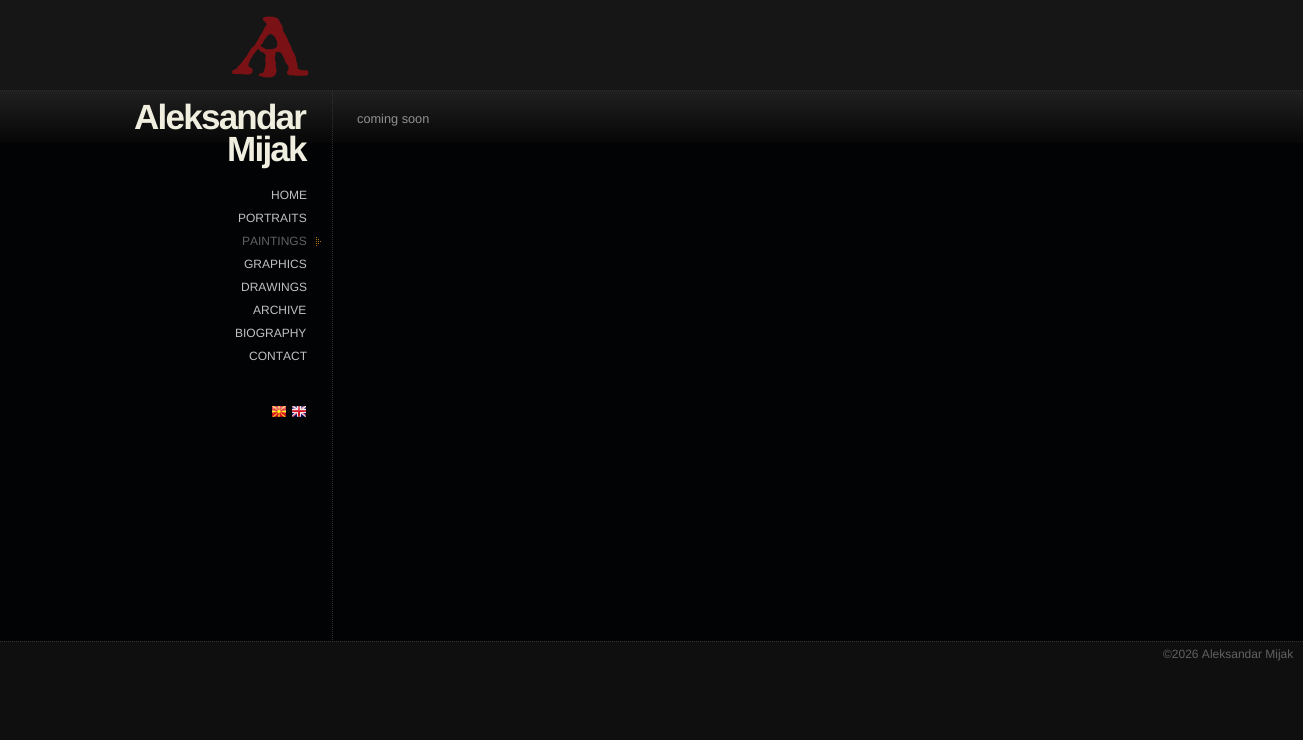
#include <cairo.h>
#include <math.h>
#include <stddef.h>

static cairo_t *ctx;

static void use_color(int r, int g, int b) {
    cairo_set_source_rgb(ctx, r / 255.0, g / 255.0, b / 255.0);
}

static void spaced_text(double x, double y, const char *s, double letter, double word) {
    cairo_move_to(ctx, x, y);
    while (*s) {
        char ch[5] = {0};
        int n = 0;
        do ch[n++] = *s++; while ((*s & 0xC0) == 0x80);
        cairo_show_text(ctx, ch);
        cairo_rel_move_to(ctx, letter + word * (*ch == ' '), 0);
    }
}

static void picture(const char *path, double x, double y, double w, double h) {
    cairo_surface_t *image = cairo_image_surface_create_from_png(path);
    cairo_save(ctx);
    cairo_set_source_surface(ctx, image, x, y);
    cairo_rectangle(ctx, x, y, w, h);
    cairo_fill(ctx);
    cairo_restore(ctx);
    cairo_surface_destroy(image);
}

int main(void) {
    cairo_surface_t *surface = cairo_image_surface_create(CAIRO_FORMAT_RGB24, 1303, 740);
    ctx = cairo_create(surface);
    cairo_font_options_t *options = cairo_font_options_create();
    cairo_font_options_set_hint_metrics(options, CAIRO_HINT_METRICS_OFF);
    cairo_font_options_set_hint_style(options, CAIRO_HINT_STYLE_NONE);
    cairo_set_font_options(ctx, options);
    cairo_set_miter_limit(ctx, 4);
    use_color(2, 3, 5);
    cairo_paint(ctx);
    picture("img1.png", 0, 91, 1303, 52);
    use_color(22, 22, 22);
    cairo_rectangle(ctx, 0, 0, 1303, 91);
    cairo_fill(ctx);
    cairo_new_path(ctx);
    cairo_move_to(ctx, 0, 90.5);
    cairo_line_to(ctx, 1303, 90.5);
    use_color(48, 48, 48);
    cairo_set_line_width(ctx, 1);
    cairo_set_dash(ctx, (double[]){1, 1}, 2, 0);
    cairo_stroke(ctx);
    picture("img2.png", 231, 16, 78, 62);
    cairo_select_font_face(ctx, "Liberation Sans", CAIRO_FONT_SLANT_NORMAL, CAIRO_FONT_WEIGHT_BOLD);
    cairo_set_font_size(ctx, 35);
    use_color(240, 238, 223);
    spaced_text(134, 129, "Aleksandar", -1.75, 0);
    spaced_text(227, 161, "Mijak", -1.75, 0);
    cairo_select_font_face(ctx, "Liberation Sans", CAIRO_FONT_SLANT_NORMAL, CAIRO_FONT_WEIGHT_NORMAL);
    cairo_set_font_size(ctx, 12);
    use_color(192, 192, 192);
    cairo_move_to(ctx, 271, 199);
    cairo_show_text(ctx, "HOME");
    cairo_move_to(ctx, 238, 222);
    cairo_show_text(ctx, "PORTRAITS");
    use_color(96, 96, 96);
    cairo_move_to(ctx, 242, 245);
    cairo_show_text(ctx, "PAINTINGS");
    picture("img3.png", 316, 237, 5, 9);
    use_color(192, 192, 192);
    cairo_move_to(ctx, 244, 268);
    cairo_show_text(ctx, "GRAPHICS");
    cairo_move_to(ctx, 241, 291);
    cairo_show_text(ctx, "DRAWINGS");
    cairo_move_to(ctx, 253, 314);
    cairo_show_text(ctx, "ARCHIVE");
    cairo_move_to(ctx, 235, 337);
    cairo_show_text(ctx, "BIOGRAPHY");
    cairo_move_to(ctx, 249, 360);
    cairo_show_text(ctx, "CONTACT");
    picture("img4.png", 272, 406, 14, 11);
    picture("img5.png", 292, 406, 14, 11);
    cairo_new_path(ctx);
    cairo_move_to(ctx, 332.5, 91);
    cairo_line_to(ctx, 332.5, 641);
    use_color(48, 48, 48);
    cairo_stroke(ctx);
    cairo_set_font_size(ctx, 12.75);
    use_color(144, 144, 144);
    cairo_move_to(ctx, 357, 123);
    cairo_show_text(ctx, "coming soon");
    use_color(15, 15, 15);
    cairo_rectangle(ctx, 0, 641, 1303, 99);
    cairo_fill(ctx);
    cairo_new_path(ctx);
    cairo_move_to(ctx, 0, 641.5);
    cairo_line_to(ctx, 1303, 641.5);
    use_color(48, 48, 48);
    cairo_stroke(ctx);
    cairo_set_font_size(ctx, 12);
    use_color(96, 96, 96);
    cairo_move_to(ctx, 1163, 658);
    cairo_show_text(ctx, "©2026 Aleksandar Mijak");
    cairo_surface_write_to_png(surface, "result.png");
    cairo_font_options_destroy(options);
    cairo_destroy(ctx);
    cairo_surface_destroy(surface);
    return 0;
}
